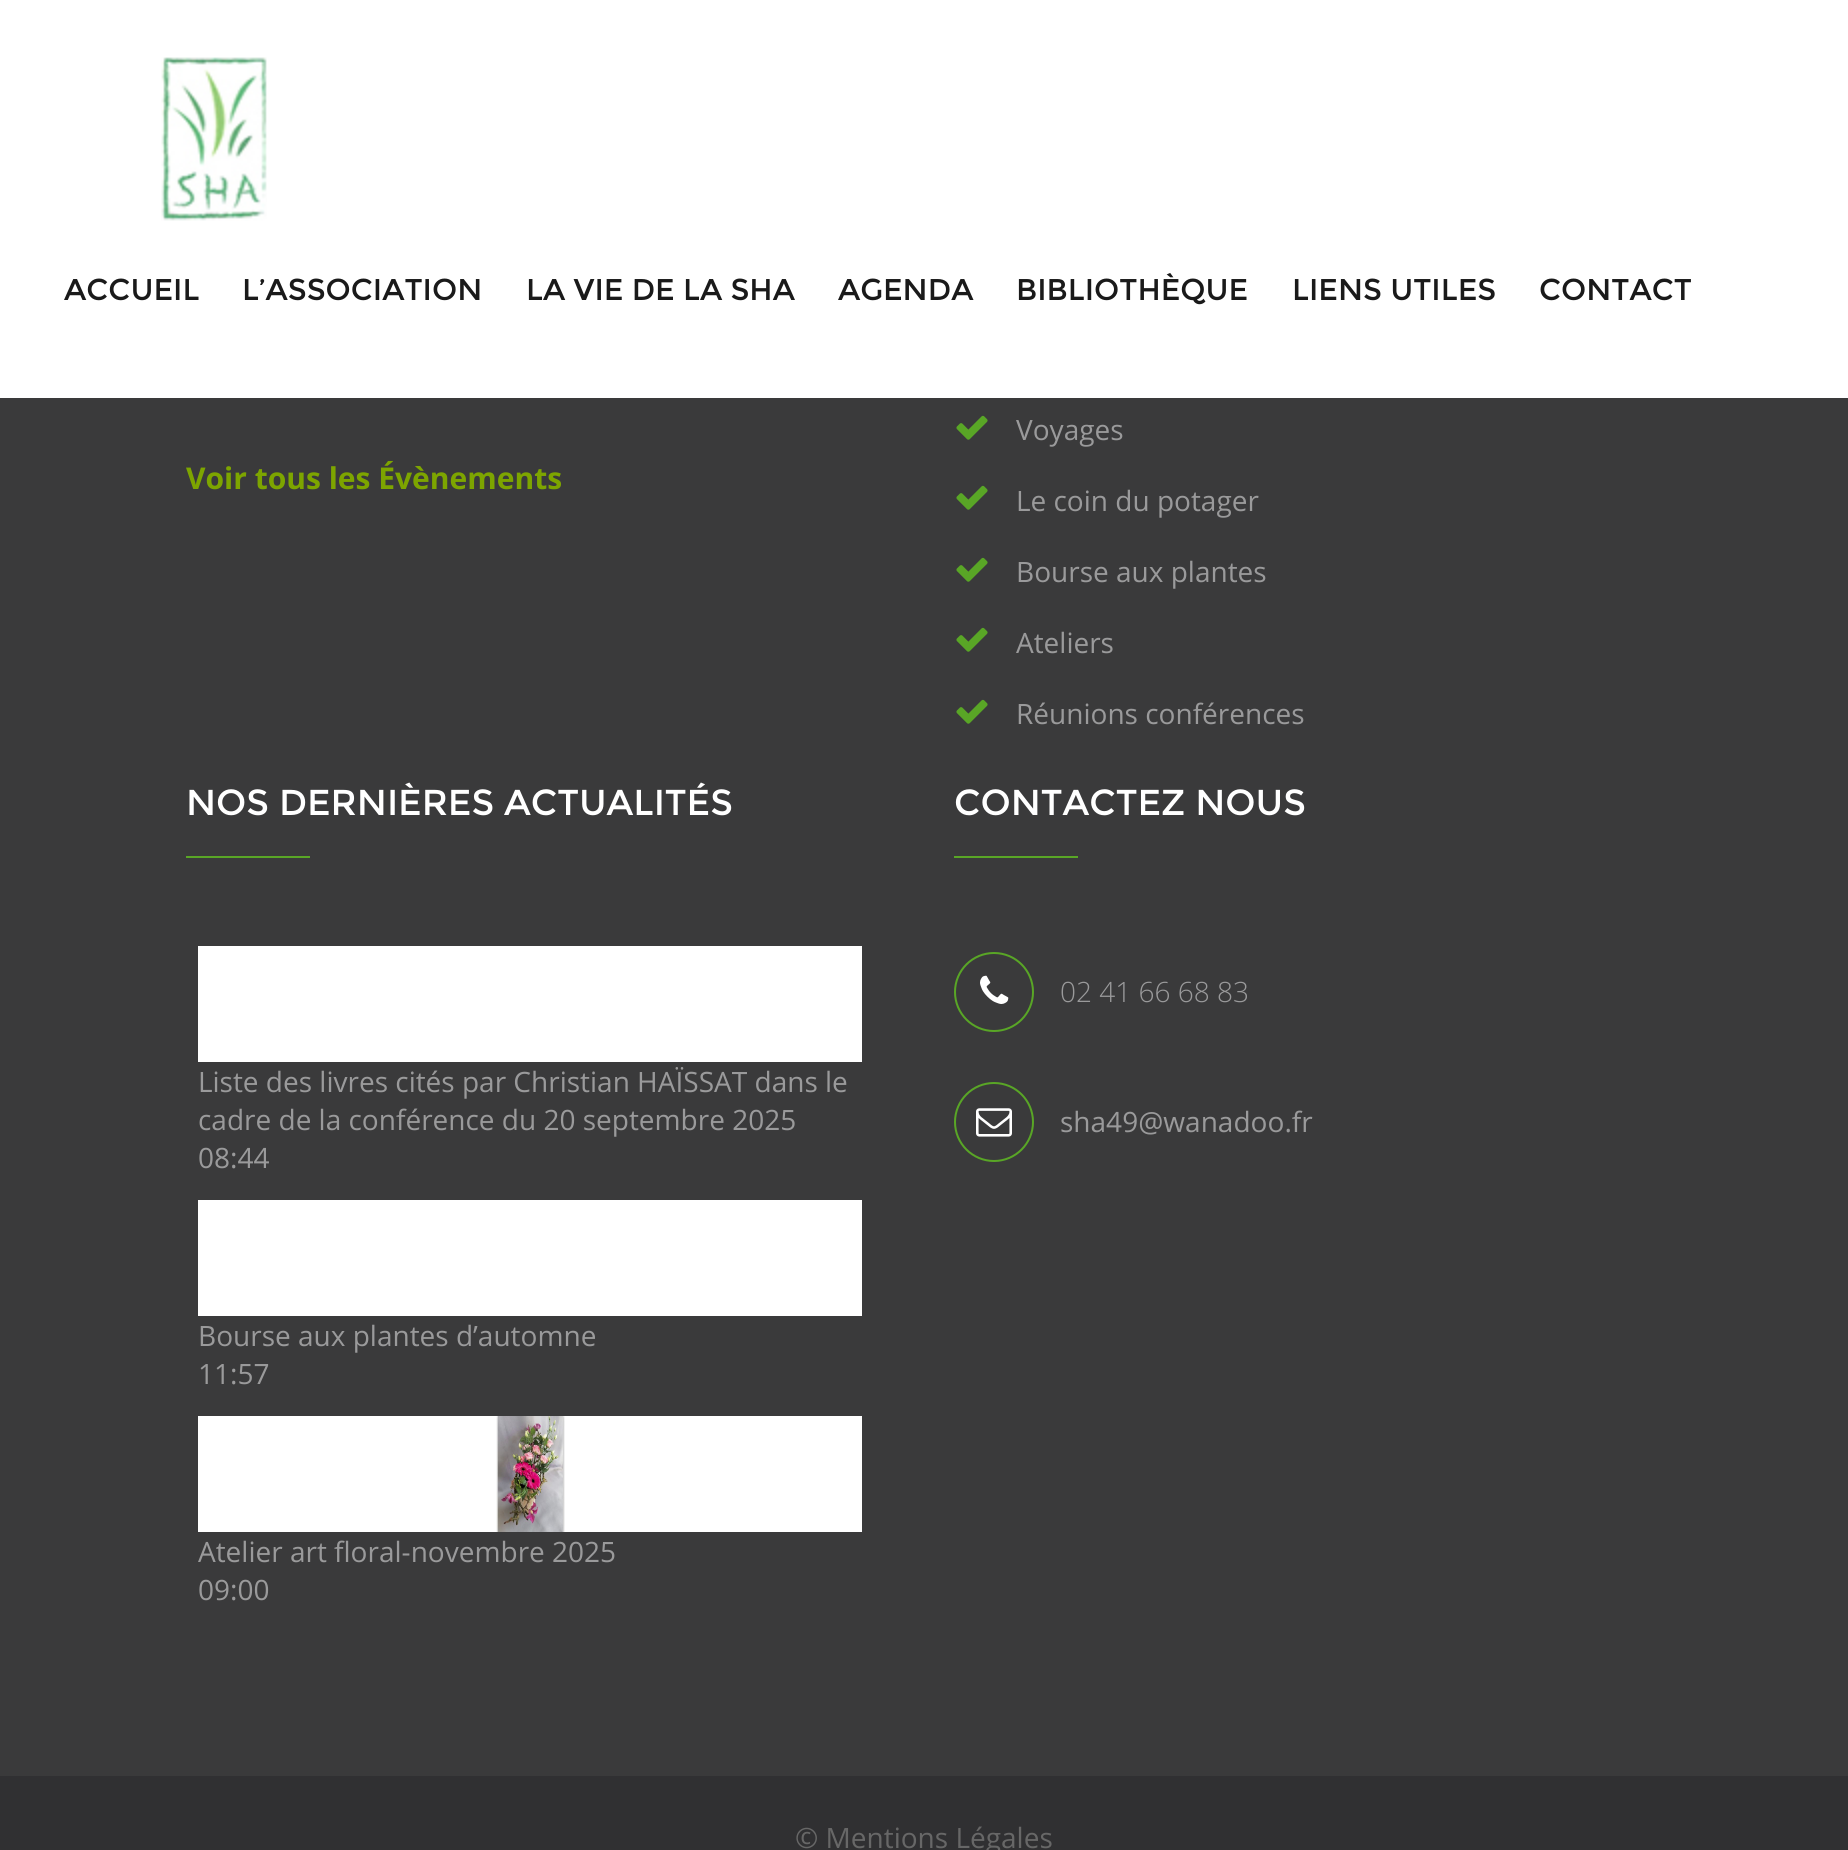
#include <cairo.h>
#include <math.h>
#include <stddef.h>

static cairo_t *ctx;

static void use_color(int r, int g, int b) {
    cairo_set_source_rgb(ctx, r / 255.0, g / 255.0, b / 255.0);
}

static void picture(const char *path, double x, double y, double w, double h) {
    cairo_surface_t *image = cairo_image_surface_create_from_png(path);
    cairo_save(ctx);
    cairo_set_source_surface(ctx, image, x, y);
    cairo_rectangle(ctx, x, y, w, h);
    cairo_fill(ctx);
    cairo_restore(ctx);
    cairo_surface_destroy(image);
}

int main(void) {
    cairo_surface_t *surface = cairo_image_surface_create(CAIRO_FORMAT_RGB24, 1848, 1850);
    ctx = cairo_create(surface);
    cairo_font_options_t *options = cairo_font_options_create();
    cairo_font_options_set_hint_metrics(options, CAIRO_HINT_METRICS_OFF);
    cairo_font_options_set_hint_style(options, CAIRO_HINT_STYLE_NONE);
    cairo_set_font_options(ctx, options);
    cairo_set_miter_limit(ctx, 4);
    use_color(58, 58, 59);
    cairo_paint(ctx);
    use_color(255, 255, 255);
    cairo_rectangle(ctx, 0, 0, 1848, 398);
    cairo_fill(ctx);
    picture("img1.png", 161, 57, 106, 164);
    cairo_select_font_face(ctx, "Montserrat", CAIRO_FONT_SLANT_NORMAL, CAIRO_FONT_WEIGHT_NORMAL);
    cairo_set_font_size(ctx, 30);
    use_color(26, 26, 26);
    cairo_move_to(ctx, 64, 300);
    cairo_show_text(ctx, "ACCUEIL");
    cairo_move_to(ctx, 242, 300);
    cairo_show_text(ctx, "L’ASSOCIATION");
    cairo_move_to(ctx, 526, 300);
    cairo_show_text(ctx, "LA VIE DE LA SHA");
    cairo_move_to(ctx, 838, 300);
    cairo_show_text(ctx, "AGENDA");
    cairo_move_to(ctx, 1016, 300);
    cairo_show_text(ctx, "BIBLIOTHÈQUE");
    cairo_move_to(ctx, 1292, 300);
    cairo_show_text(ctx, "LIENS UTILES");
    cairo_move_to(ctx, 1539, 300);
    cairo_show_text(ctx, "CONTACT");
    cairo_select_font_face(ctx, "Open Sans", CAIRO_FONT_SLANT_NORMAL, CAIRO_FONT_WEIGHT_BOLD);
    use_color(125, 165, 0);
    cairo_move_to(ctx, 186, 489);
    cairo_show_text(ctx, "Voir tous les Évènements");
    picture("img2.png", 956, 415, 32, 25);
    cairo_select_font_face(ctx, "Open Sans", CAIRO_FONT_SLANT_NORMAL, CAIRO_FONT_WEIGHT_NORMAL);
    cairo_set_font_size(ctx, 28);
    use_color(154, 154, 155);
    cairo_move_to(ctx, 1016, 440);
    cairo_show_text(ctx, "Voyages");
    picture("img2.png", 956, 485, 32, 25);
    cairo_move_to(ctx, 1016, 511);
    cairo_show_text(ctx, "Le coin du potager");
    picture("img2.png", 956, 557, 32, 25);
    cairo_move_to(ctx, 1016, 582);
    cairo_show_text(ctx, "Bourse aux plantes");
    picture("img2.png", 956, 627, 32, 25);
    cairo_move_to(ctx, 1016, 653);
    cairo_show_text(ctx, "Ateliers");
    picture("img2.png", 956, 699, 32, 25);
    cairo_move_to(ctx, 1016, 724);
    cairo_show_text(ctx, "Réunions conférences");
    cairo_select_font_face(ctx, "Montserrat", CAIRO_FONT_SLANT_NORMAL, CAIRO_FONT_WEIGHT_NORMAL);
    cairo_set_font_size(ctx, 36);
    use_color(255, 255, 255);
    cairo_move_to(ctx, 186, 815);
    cairo_show_text(ctx, "NOS DERNIÈRES ACTUALITÉS");
    use_color(89, 166, 38);
    cairo_rectangle(ctx, 186, 856, 124, 2);
    cairo_fill(ctx);
    use_color(255, 255, 255);
    cairo_rectangle(ctx, 198, 946, 664, 116);
    cairo_fill(ctx);
    cairo_select_font_face(ctx, "Open Sans", CAIRO_FONT_SLANT_NORMAL, CAIRO_FONT_WEIGHT_NORMAL);
    cairo_set_font_size(ctx, 28);
    use_color(154, 154, 155);
    cairo_move_to(ctx, 198, 1092);
    cairo_show_text(ctx, "Liste des livres cités par Christian HAÏSSAT dans le");
    cairo_move_to(ctx, 198, 1130);
    cairo_show_text(ctx, "cadre de la conférence du 20 septembre 2025");
    cairo_move_to(ctx, 198, 1168);
    cairo_show_text(ctx, "08:44");
    use_color(255, 255, 255);
    cairo_rectangle(ctx, 198, 1200, 664, 116);
    cairo_fill(ctx);
    use_color(154, 154, 155);
    cairo_move_to(ctx, 198, 1346);
    cairo_show_text(ctx, "Bourse aux plantes d’automne");
    cairo_move_to(ctx, 198, 1384);
    cairo_show_text(ctx, "11:57");
    use_color(255, 255, 255);
    cairo_rectangle(ctx, 198, 1416, 664, 116);
    cairo_fill(ctx);
    picture("img3.png", 496, 1416, 69, 116);
    use_color(154, 154, 155);
    cairo_move_to(ctx, 198, 1562);
    cairo_show_text(ctx, "Atelier art floral-novembre 2025");
    cairo_move_to(ctx, 198, 1600);
    cairo_show_text(ctx, "09:00");
    cairo_select_font_face(ctx, "Montserrat", CAIRO_FONT_SLANT_NORMAL, CAIRO_FONT_WEIGHT_NORMAL);
    cairo_set_font_size(ctx, 36);
    use_color(255, 255, 255);
    cairo_move_to(ctx, 954, 815);
    cairo_show_text(ctx, "CONTACTEZ NOUS");
    use_color(89, 166, 38);
    cairo_rectangle(ctx, 954, 856, 124, 2);
    cairo_fill(ctx);
    cairo_arc(ctx, 994, 992, 39, 0, 2 * M_PI);
    cairo_stroke(ctx);
    picture("img4.png", 980, 975, 29, 29);
    cairo_select_font_face(ctx, "Open Sans Light", CAIRO_FONT_SLANT_NORMAL, CAIRO_FONT_WEIGHT_NORMAL);
    cairo_set_font_size(ctx, 28);
    use_color(154, 154, 155);
    cairo_move_to(ctx, 1060, 1002);
    cairo_show_text(ctx, "02 41 66 68 83");
    cairo_new_path(ctx);
    cairo_arc(ctx, 994, 1122, 39, 0, 2 * M_PI);
    use_color(89, 166, 38);
    cairo_stroke(ctx);
    picture("img5.png", 976, 1108, 36, 29);
    cairo_select_font_face(ctx, "Open Sans", CAIRO_FONT_SLANT_NORMAL, CAIRO_FONT_WEIGHT_NORMAL);
    use_color(154, 154, 155);
    cairo_move_to(ctx, 1060, 1132);
    cairo_show_text(ctx, "sha49@wanadoo.fr");
    use_color(48, 48, 50);
    cairo_rectangle(ctx, 0, 1776, 1848, 74);
    cairo_fill(ctx);
    use_color(103, 103, 103);
    cairo_move_to(ctx, 795, 1848);
    cairo_show_text(ctx, "© Mentions Légales");
    cairo_surface_write_to_png(surface, "result.png");
    cairo_font_options_destroy(options);
    cairo_destroy(ctx);
    cairo_surface_destroy(surface);
    return 0;
}
